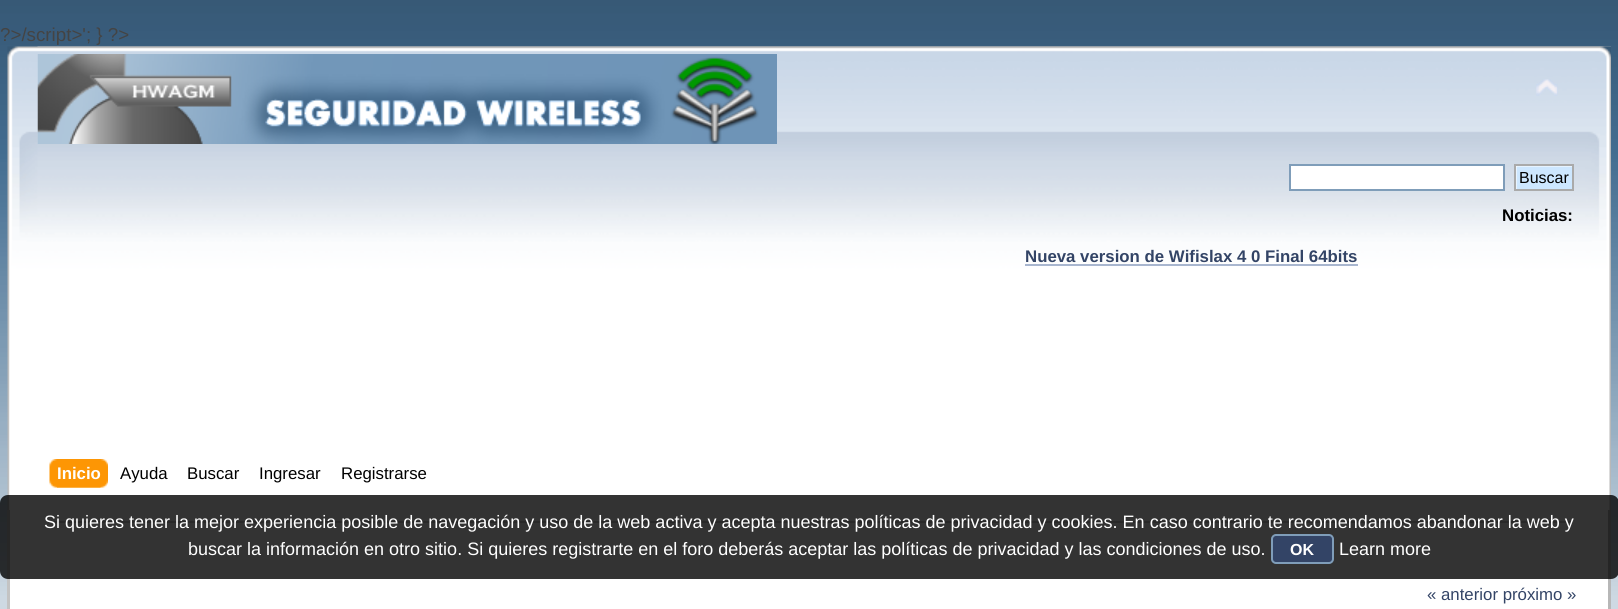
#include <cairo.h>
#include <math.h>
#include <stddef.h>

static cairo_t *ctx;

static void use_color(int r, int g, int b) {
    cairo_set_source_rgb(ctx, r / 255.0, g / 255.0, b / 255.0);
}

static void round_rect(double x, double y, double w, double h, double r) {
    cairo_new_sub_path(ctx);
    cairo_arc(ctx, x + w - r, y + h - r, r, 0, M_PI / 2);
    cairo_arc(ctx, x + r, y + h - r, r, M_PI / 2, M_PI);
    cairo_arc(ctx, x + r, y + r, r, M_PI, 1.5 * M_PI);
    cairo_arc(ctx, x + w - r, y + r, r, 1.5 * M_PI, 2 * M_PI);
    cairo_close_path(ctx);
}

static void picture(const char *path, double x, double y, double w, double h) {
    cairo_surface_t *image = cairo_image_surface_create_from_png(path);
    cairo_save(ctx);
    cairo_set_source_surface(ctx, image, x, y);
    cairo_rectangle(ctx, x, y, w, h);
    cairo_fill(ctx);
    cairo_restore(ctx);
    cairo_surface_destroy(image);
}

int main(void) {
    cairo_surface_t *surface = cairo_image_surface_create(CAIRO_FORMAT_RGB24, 1618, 609);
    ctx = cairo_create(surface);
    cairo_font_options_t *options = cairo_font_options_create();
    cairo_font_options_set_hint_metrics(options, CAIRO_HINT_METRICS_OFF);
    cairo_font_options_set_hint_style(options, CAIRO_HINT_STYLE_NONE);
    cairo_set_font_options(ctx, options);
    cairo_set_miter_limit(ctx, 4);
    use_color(255, 255, 255);
    cairo_paint(ctx);
    picture("img1.png", 0, 0, 1618, 609);
    cairo_select_font_face(ctx, "Liberation Sans", CAIRO_FONT_SLANT_NORMAL, CAIRO_FONT_WEIGHT_NORMAL);
    cairo_set_font_size(ctx, 18.75);
    use_color(68, 68, 68);
    cairo_move_to(ctx, 0, 41);
    cairo_show_text(ctx, "?>/script>'; } ?>");
    picture("img2.png", 7, 46, 1604, 464);
    picture("img3.png", 37, 46, 1574, 464);
    picture("img4.png", 37, 54, 740, 90);
    picture("img5.png", 1536, 79, 22, 17);
    use_color(255, 255, 255);
    cairo_rectangle(ctx, 1290, 165, 214, 25);
    cairo_fill_preserve(ctx);
    use_color(127, 157, 185);
    cairo_stroke(ctx);
    picture("img6.png", 1516, 166, 56, 23);
    cairo_rectangle(ctx, 1515, 165, 58, 25);
    use_color(170, 170, 170);
    cairo_stroke(ctx);
    cairo_set_font_size(ctx, 16);
    use_color(0, 0, 0);
    cairo_move_to(ctx, 1519, 183);
    cairo_show_text(ctx, "Buscar");
    cairo_select_font_face(ctx, "Liberation Sans", CAIRO_FONT_SLANT_NORMAL, CAIRO_FONT_WEIGHT_BOLD);
    cairo_set_font_size(ctx, 16.8);
    cairo_move_to(ctx, 1502, 221);
    cairo_show_text(ctx, "Noticias:");
    use_color(51, 68, 102);
    cairo_move_to(ctx, 1025, 262);
    cairo_show_text(ctx, "Nueva version de Wifislax 4 0 Final 64bits");
    use_color(168, 182, 207);
    cairo_rectangle(ctx, 1025, 264, 333, 2);
    cairo_fill(ctx);
    picture("img7.png", 57, 459, 51, 29);
    picture("img8.png", 49, 459, 52, 29);
    use_color(255, 255, 255);
    cairo_move_to(ctx, 57, 479);
    cairo_show_text(ctx, "Inicio");
    cairo_select_font_face(ctx, "Liberation Sans", CAIRO_FONT_SLANT_NORMAL, CAIRO_FONT_WEIGHT_NORMAL);
    use_color(0, 0, 0);
    cairo_move_to(ctx, 120, 479);
    cairo_show_text(ctx, "Ayuda");
    cairo_move_to(ctx, 187, 479);
    cairo_show_text(ctx, "Buscar");
    cairo_move_to(ctx, 259, 479);
    cairo_show_text(ctx, "Ingresar");
    cairo_move_to(ctx, 341, 479);
    cairo_show_text(ctx, "Registrarse");
    use_color(255, 255, 255);
    cairo_rectangle(ctx, 10, 510, 1598, 99);
    cairo_fill(ctx);
    use_color(195, 195, 195);
    cairo_rectangle(ctx, 7, 510, 3, 99);
    cairo_fill(ctx);
    use_color(183, 183, 183);
    cairo_rectangle(ctx, 1608, 510, 3, 99);
    cairo_fill(ctx);
    use_color(204, 204, 204);
    cairo_rectangle(ctx, 48, 521, 1523, 2);
    cairo_fill(ctx);
    use_color(51, 68, 102);
    cairo_move_to(ctx, 1427, 600);
    cairo_show_text(ctx, "« anterior próximo »");
    cairo_set_source_rgba(ctx, 0, 0, 0, 0.8);
    round_rect(0, 495, 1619, 84, 8);
    cairo_fill(ctx);
    cairo_set_font_size(ctx, 18);
    use_color(255, 255, 255);
    cairo_move_to(ctx, 44, 528);
    cairo_show_text(ctx, "Si quieres tener la mejor experiencia posible de navegación y uso de la web activa y acepta nuestras políticas de privacidad y cookies. En caso contrario te recomendamos abandonar la web y");
    cairo_move_to(ctx, 188, 555);
    cairo_show_text(ctx, "buscar la información en otro sitio. Si quieres registrarte en el foro deberás aceptar las políticas de privacidad y las condiciones de uso.");
    use_color(51, 68, 102);
    round_rect(1272, 535, 61, 28, 4);
    cairo_fill_preserve(ctx);
    use_color(127, 157, 185);
    cairo_stroke(ctx);
    cairo_select_font_face(ctx, "Liberation Sans", CAIRO_FONT_SLANT_NORMAL, CAIRO_FONT_WEIGHT_BOLD);
    cairo_set_font_size(ctx, 16);
    use_color(255, 255, 255);
    cairo_move_to(ctx, 1290, 555);
    cairo_show_text(ctx, "OK");
    cairo_select_font_face(ctx, "Liberation Sans", CAIRO_FONT_SLANT_NORMAL, CAIRO_FONT_WEIGHT_NORMAL);
    cairo_set_font_size(ctx, 18);
    cairo_move_to(ctx, 1339, 555);
    cairo_show_text(ctx, "Learn more");
    cairo_surface_write_to_png(surface, "result.png");
    cairo_font_options_destroy(options);
    cairo_destroy(ctx);
    cairo_surface_destroy(surface);
    return 0;
}
